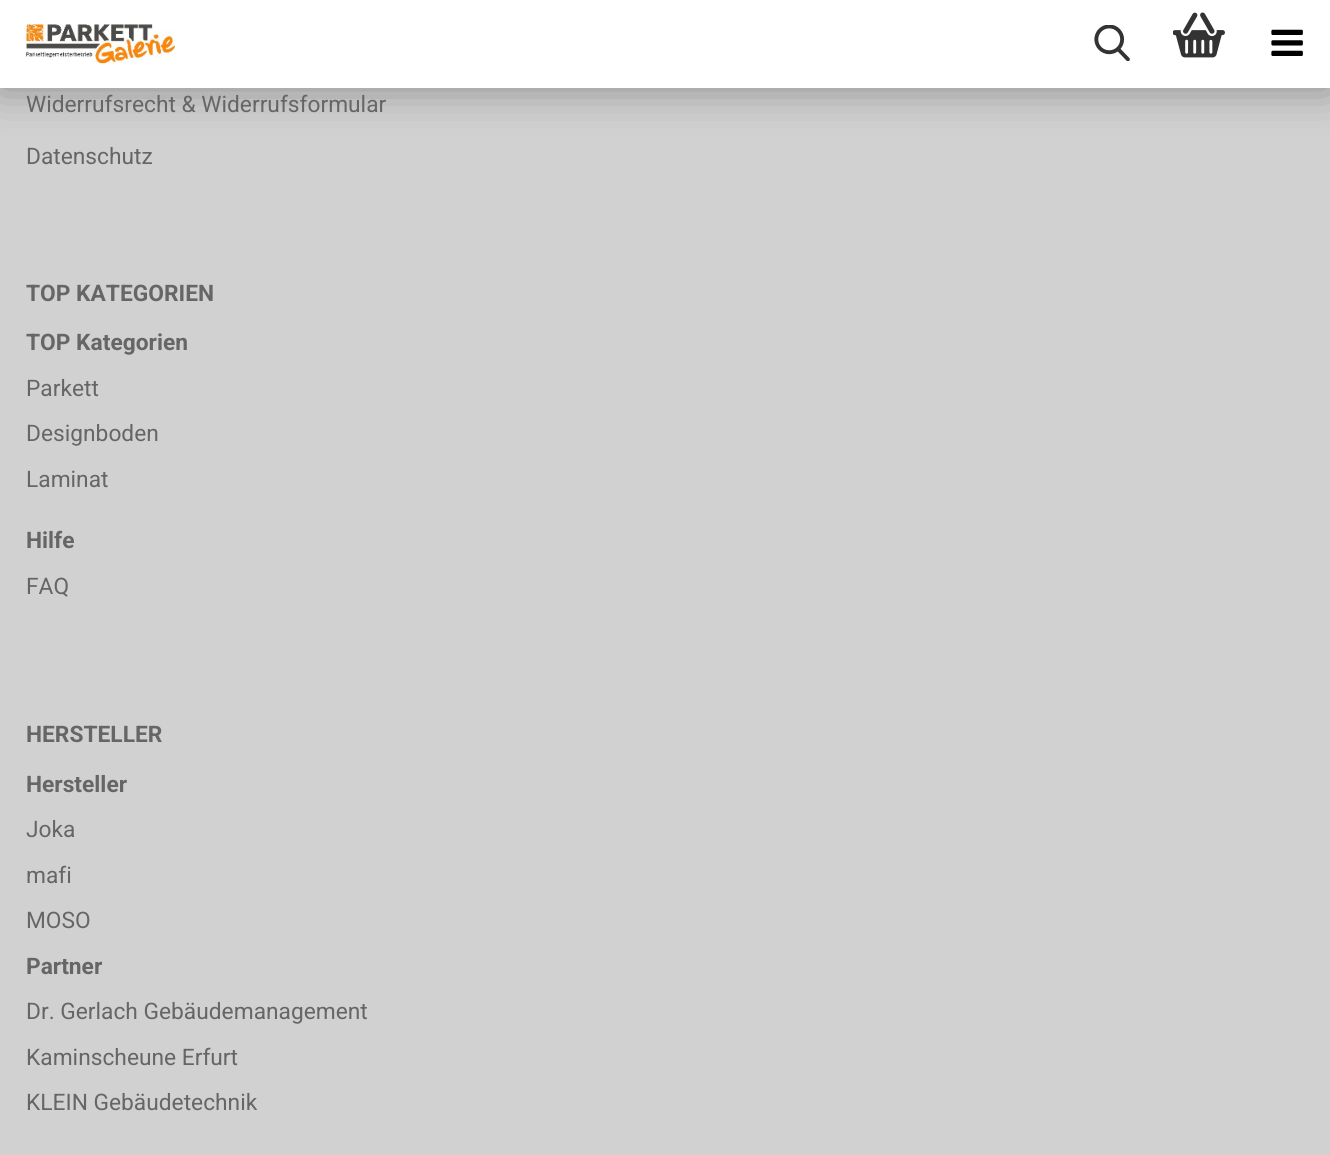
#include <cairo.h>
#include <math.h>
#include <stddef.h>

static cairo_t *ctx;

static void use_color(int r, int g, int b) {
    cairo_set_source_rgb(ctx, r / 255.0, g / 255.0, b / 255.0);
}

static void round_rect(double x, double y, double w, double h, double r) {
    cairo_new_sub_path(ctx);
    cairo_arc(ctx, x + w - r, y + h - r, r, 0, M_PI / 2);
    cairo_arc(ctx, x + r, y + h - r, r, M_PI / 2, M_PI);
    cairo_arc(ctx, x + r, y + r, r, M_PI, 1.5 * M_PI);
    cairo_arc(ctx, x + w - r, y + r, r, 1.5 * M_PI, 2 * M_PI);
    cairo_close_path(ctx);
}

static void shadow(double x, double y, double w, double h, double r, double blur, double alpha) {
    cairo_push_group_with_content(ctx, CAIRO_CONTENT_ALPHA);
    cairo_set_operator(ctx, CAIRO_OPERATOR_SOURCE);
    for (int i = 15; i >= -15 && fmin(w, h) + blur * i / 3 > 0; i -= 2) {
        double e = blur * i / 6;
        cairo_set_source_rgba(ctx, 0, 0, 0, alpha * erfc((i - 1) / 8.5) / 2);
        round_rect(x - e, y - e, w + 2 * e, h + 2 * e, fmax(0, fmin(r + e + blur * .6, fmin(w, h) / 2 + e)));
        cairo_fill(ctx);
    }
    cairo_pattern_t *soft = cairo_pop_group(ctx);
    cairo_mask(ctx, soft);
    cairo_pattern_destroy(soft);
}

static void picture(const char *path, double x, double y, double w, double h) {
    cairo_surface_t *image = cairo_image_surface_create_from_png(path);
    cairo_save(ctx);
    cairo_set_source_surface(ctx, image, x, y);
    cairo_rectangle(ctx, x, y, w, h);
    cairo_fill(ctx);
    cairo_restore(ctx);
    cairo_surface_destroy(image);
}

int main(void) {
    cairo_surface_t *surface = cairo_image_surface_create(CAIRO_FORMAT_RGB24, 1330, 1155);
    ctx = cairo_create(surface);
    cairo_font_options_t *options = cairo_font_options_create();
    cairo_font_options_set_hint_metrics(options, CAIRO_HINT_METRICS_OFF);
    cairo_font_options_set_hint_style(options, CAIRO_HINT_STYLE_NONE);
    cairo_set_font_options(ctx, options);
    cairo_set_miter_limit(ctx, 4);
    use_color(209, 209, 209);
    cairo_paint(ctx);
    use_color(0, 0, 0);
    shadow(0, 0, 1330, 88, 0, 22, 0.35);
    use_color(255, 255, 255);
    cairo_rectangle(ctx, 0, 0, 1330, 88);
    cairo_fill(ctx);
    picture("img1.png", 26, 24, 149, 40);
    picture("img2.png", 1094, 25, 36, 36);
    picture("img3.png", 1173, 12, 52, 46);
    picture("img4.png", 1271, 29, 32, 27);
    cairo_select_font_face(ctx, "Roboto", CAIRO_FONT_SLANT_NORMAL, CAIRO_FONT_WEIGHT_NORMAL);
    cairo_set_font_size(ctx, 22.75);
    use_color(102, 102, 102);
    cairo_move_to(ctx, 26, 112);
    cairo_show_text(ctx, "Widerrufsrecht & Widerrufsformular");
    cairo_move_to(ctx, 26, 164);
    cairo_show_text(ctx, "Datenschutz");
    cairo_select_font_face(ctx, "Roboto", CAIRO_FONT_SLANT_NORMAL, CAIRO_FONT_WEIGHT_BOLD);
    cairo_move_to(ctx, 26, 301);
    cairo_show_text(ctx, "TOP KATEGORIEN");
    cairo_move_to(ctx, 26, 350);
    cairo_show_text(ctx, "TOP Kategorien");
    cairo_select_font_face(ctx, "Roboto", CAIRO_FONT_SLANT_NORMAL, CAIRO_FONT_WEIGHT_NORMAL);
    cairo_move_to(ctx, 26, 396);
    cairo_show_text(ctx, "Parkett");
    cairo_move_to(ctx, 26, 441);
    cairo_show_text(ctx, "Designboden");
    cairo_move_to(ctx, 26, 487);
    cairo_show_text(ctx, "Laminat");
    cairo_select_font_face(ctx, "Roboto", CAIRO_FONT_SLANT_NORMAL, CAIRO_FONT_WEIGHT_BOLD);
    cairo_move_to(ctx, 26, 548);
    cairo_show_text(ctx, "Hilfe");
    cairo_select_font_face(ctx, "Roboto", CAIRO_FONT_SLANT_NORMAL, CAIRO_FONT_WEIGHT_NORMAL);
    cairo_move_to(ctx, 26, 594);
    cairo_show_text(ctx, "FAQ");
    cairo_select_font_face(ctx, "Roboto", CAIRO_FONT_SLANT_NORMAL, CAIRO_FONT_WEIGHT_BOLD);
    cairo_move_to(ctx, 26, 742);
    cairo_show_text(ctx, "HERSTELLER");
    cairo_move_to(ctx, 26, 792);
    cairo_show_text(ctx, "Hersteller");
    cairo_select_font_face(ctx, "Roboto", CAIRO_FONT_SLANT_NORMAL, CAIRO_FONT_WEIGHT_NORMAL);
    cairo_move_to(ctx, 26, 837);
    cairo_show_text(ctx, "Joka");
    cairo_move_to(ctx, 26, 883);
    cairo_show_text(ctx, "mafi");
    cairo_move_to(ctx, 26, 928);
    cairo_show_text(ctx, "MOSO");
    cairo_select_font_face(ctx, "Roboto", CAIRO_FONT_SLANT_NORMAL, CAIRO_FONT_WEIGHT_BOLD);
    cairo_move_to(ctx, 26, 974);
    cairo_show_text(ctx, "Partner");
    cairo_select_font_face(ctx, "Roboto", CAIRO_FONT_SLANT_NORMAL, CAIRO_FONT_WEIGHT_NORMAL);
    cairo_move_to(ctx, 26, 1019);
    cairo_show_text(ctx, "Dr. Gerlach Gebäudemanagement");
    cairo_move_to(ctx, 26, 1065);
    cairo_show_text(ctx, "Kaminscheune Erfurt");
    cairo_move_to(ctx, 26, 1110);
    cairo_show_text(ctx, "KLEIN Gebäudetechnik");
    cairo_surface_write_to_png(surface, "result.png");
    cairo_font_options_destroy(options);
    cairo_destroy(ctx);
    cairo_surface_destroy(surface);
    return 0;
}
